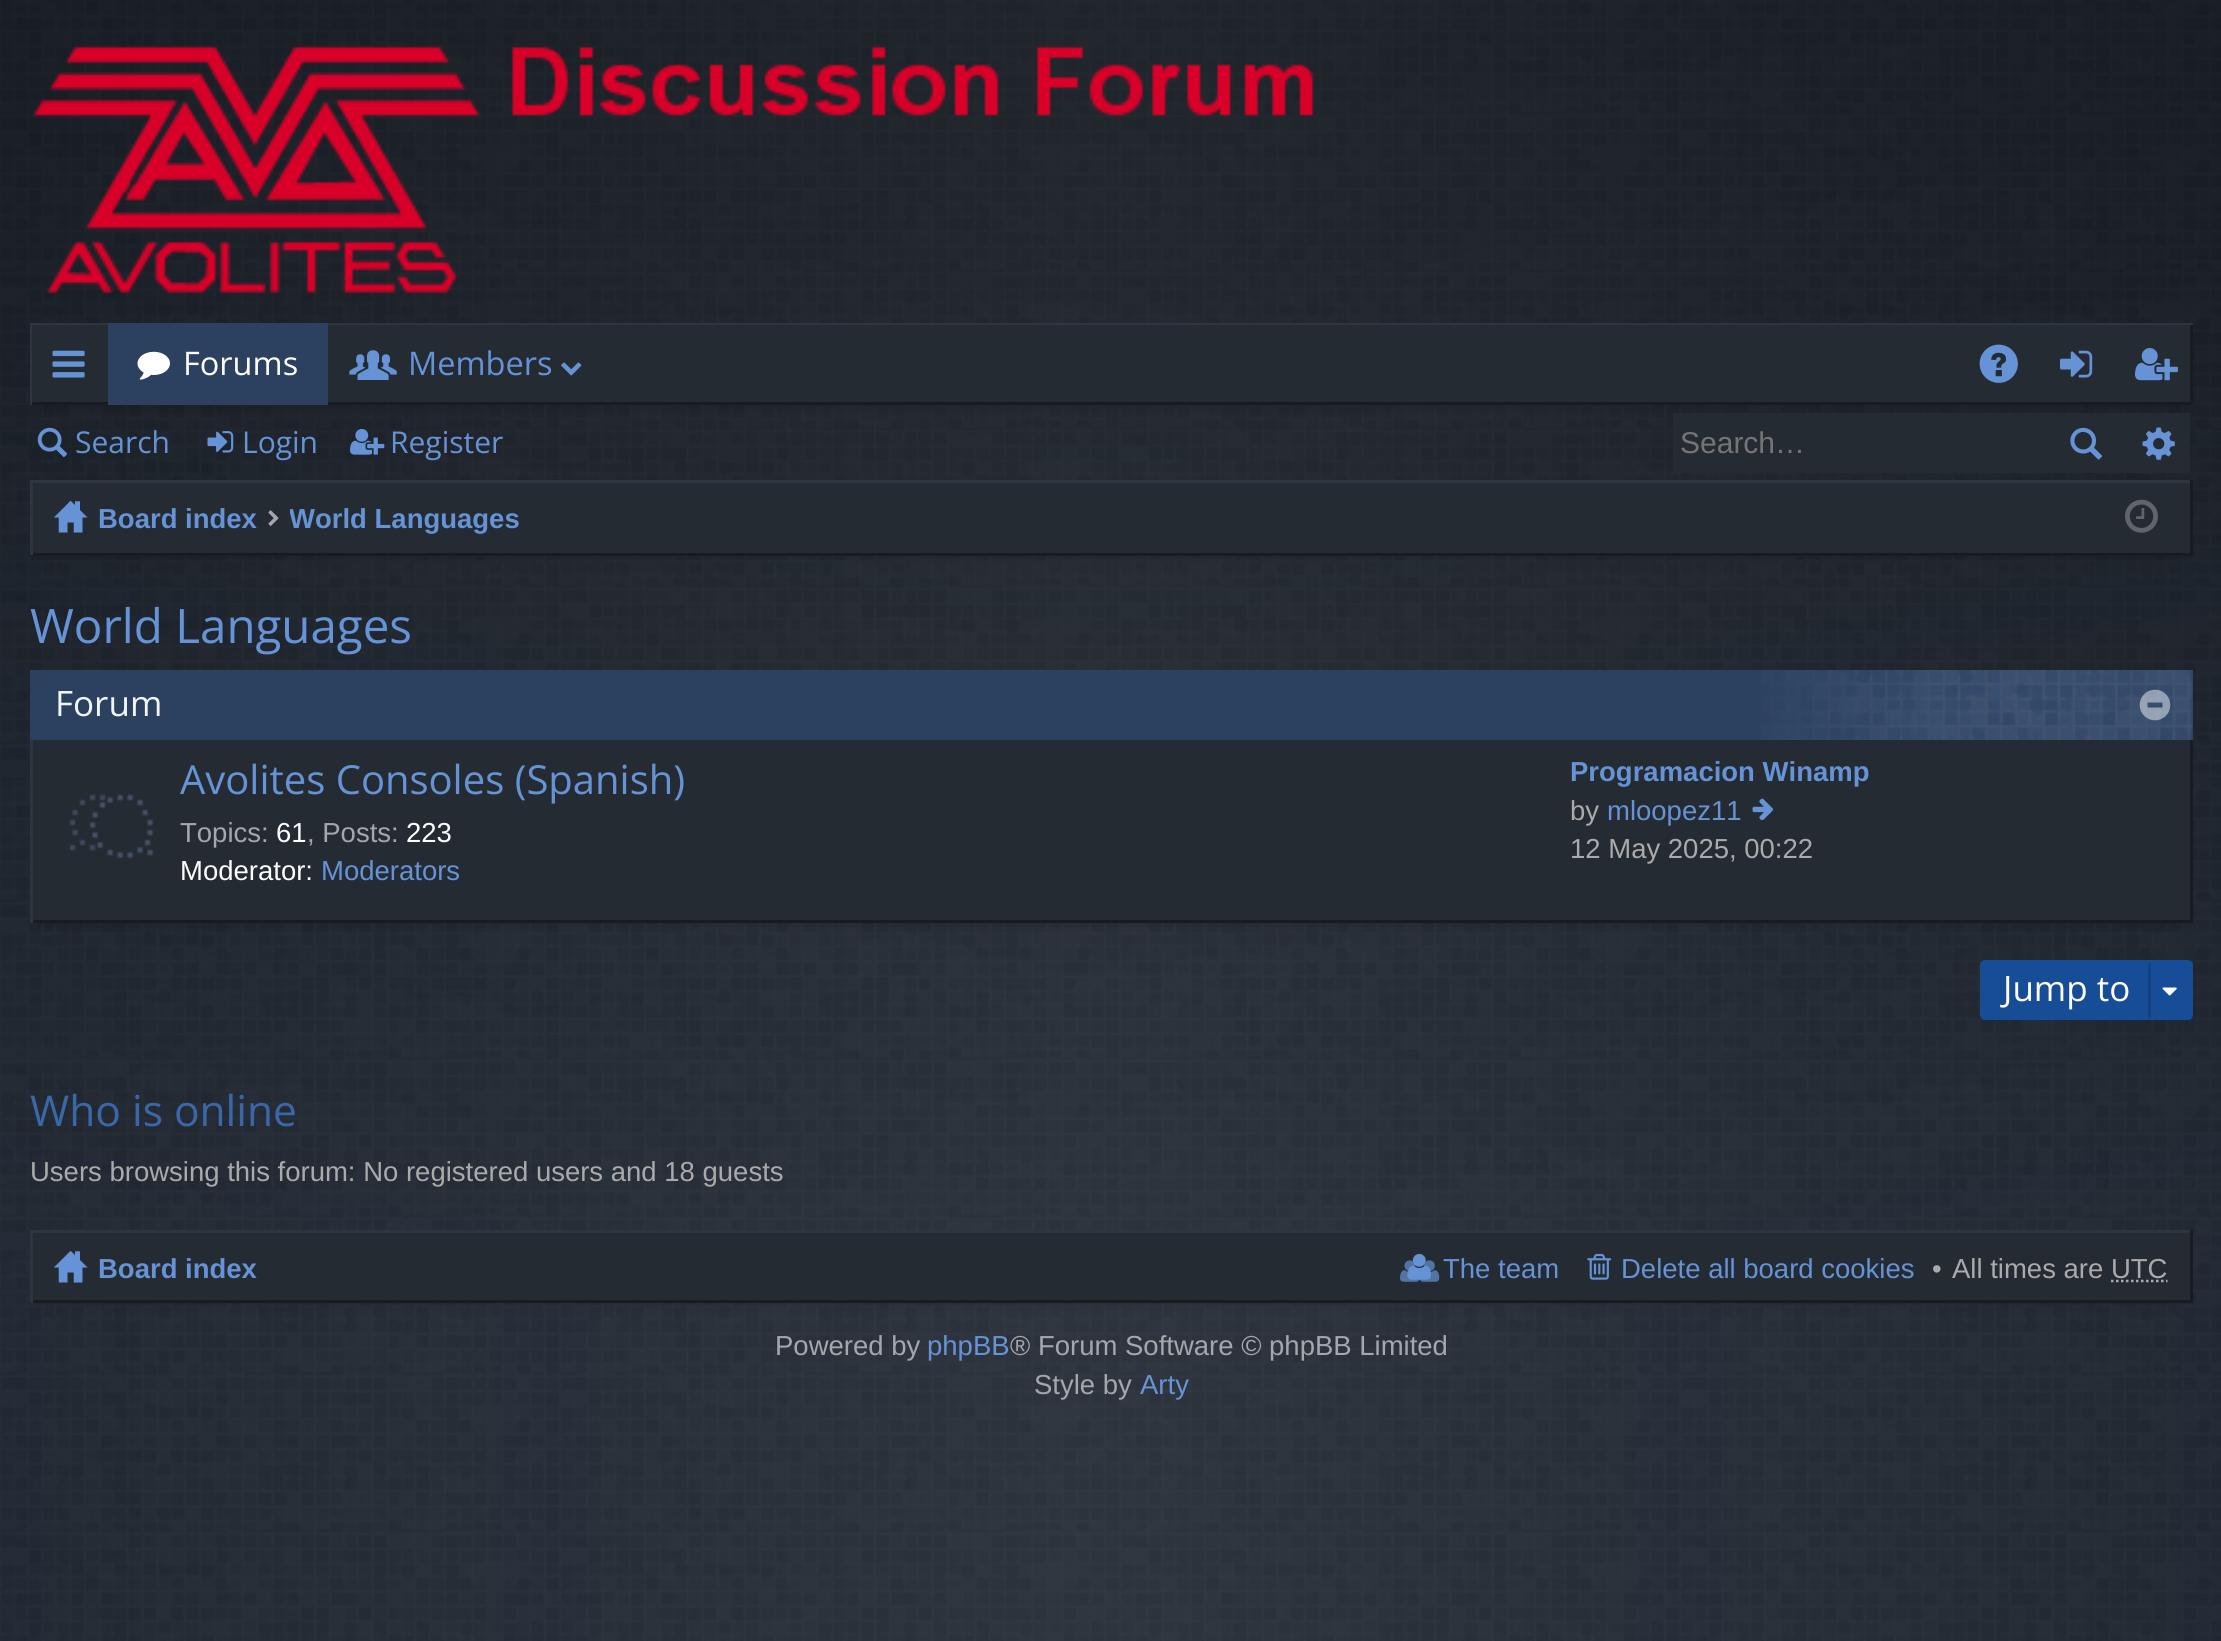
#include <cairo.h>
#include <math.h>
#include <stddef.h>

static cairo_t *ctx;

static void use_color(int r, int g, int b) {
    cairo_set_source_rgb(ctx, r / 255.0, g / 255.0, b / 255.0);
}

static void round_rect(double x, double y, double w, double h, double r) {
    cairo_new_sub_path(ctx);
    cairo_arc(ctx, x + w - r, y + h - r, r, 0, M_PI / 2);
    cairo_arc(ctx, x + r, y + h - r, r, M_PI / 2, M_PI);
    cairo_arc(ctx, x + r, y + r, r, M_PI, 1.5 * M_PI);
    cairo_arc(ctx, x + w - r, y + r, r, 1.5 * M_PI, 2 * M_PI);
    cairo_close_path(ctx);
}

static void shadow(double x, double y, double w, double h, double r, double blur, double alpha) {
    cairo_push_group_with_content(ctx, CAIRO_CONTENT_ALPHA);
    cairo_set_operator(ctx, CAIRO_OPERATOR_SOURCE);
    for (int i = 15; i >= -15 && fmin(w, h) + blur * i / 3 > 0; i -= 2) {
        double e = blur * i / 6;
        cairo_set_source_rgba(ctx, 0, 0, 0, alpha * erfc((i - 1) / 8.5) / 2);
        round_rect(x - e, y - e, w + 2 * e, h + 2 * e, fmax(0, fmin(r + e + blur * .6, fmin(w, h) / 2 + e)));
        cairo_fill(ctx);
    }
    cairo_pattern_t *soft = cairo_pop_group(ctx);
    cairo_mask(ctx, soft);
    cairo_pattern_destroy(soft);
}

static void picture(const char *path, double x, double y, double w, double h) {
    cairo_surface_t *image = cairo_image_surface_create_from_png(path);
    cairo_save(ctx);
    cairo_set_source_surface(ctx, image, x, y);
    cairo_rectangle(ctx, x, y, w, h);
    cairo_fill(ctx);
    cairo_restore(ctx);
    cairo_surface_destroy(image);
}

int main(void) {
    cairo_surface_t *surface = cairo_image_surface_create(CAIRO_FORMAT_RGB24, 2221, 1641);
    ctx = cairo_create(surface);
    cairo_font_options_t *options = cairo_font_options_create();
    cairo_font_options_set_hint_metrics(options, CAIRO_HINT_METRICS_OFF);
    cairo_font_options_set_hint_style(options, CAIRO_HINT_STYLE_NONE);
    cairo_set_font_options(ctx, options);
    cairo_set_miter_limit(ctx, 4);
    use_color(28, 35, 46);
    cairo_paint(ctx);
    picture("img1.png", 0, 0, 2221, 1641);
    picture("img2.png", 32, 45, 1282, 249);
    use_color(0, 0, 0);
    shadow(43, 348, 2137, 57, 0, 6, 0.2);
    use_color(37, 43, 51);
    cairo_rectangle(ctx, 32, 325, 2158, 77);
    cairo_fill(ctx);
    cairo_save(ctx);
    cairo_rectangle(ctx, 30, 323, 2163, 82);
    cairo_clip(ctx);
    use_color(24, 28, 33);
    cairo_set_fill_rule(ctx, CAIRO_FILL_RULE_EVEN_ODD);
    cairo_new_path(ctx);
    cairo_move_to(ctx, -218, 75);
    cairo_line_to(ctx, 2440, 75);
    cairo_line_to(ctx, 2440, 652);
    cairo_line_to(ctx, -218, 652);
    cairo_close_path(ctx);
    cairo_move_to(ctx, 28, 320);
    cairo_line_to(ctx, 2190, 320);
    cairo_line_to(ctx, 2190, 402);
    cairo_line_to(ctx, 28, 402);
    cairo_close_path(ctx);
    cairo_fill(ctx);
    use_color(46, 53, 63);
    cairo_new_path(ctx);
    cairo_move_to(ctx, -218, 75);
    cairo_line_to(ctx, 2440, 75);
    cairo_line_to(ctx, 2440, 652);
    cairo_line_to(ctx, -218, 652);
    cairo_close_path(ctx);
    cairo_move_to(ctx, 32, 325);
    cairo_line_to(ctx, 2195, 325);
    cairo_line_to(ctx, 2195, 408);
    cairo_line_to(ctx, 32, 408);
    cairo_close_path(ctx);
    cairo_fill(ctx);
    cairo_restore(ctx);
    picture("img3.png", 52, 350, 33, 28);
    use_color(44, 65, 95);
    cairo_rectangle(ctx, 108, 323, 220, 82);
    cairo_fill(ctx);
    picture("img4.png", 137, 351, 33, 29);
    cairo_select_font_face(ctx, "Open Sans", CAIRO_FONT_SLANT_NORMAL, CAIRO_FONT_WEIGHT_NORMAL);
    cairo_set_font_size(ctx, 32.5);
    use_color(255, 255, 255);
    cairo_move_to(ctx, 183, 375);
    cairo_show_text(ctx, "Forums");
    picture("img5.png", 349, 350, 48, 30);
    use_color(101, 147, 214);
    cairo_move_to(ctx, 408, 375);
    cairo_show_text(ctx, "Members");
    picture("img6.png", 561, 362, 21, 14);
    picture("img7.png", 1979, 344, 39, 39);
    picture("img8.png", 2060, 350, 33, 28);
    picture("img9.png", 2135, 348, 43, 33);
    picture("img10.png", 37, 427, 31, 31);
    cairo_set_font_size(ctx, 30);
    cairo_move_to(ctx, 75, 453);
    cairo_show_text(ctx, "Search");
    picture("img11.png", 207, 431, 27, 22);
    cairo_move_to(ctx, 242, 453);
    cairo_show_text(ctx, "Login");
    picture("img12.png", 350, 428, 35, 27);
    cairo_move_to(ctx, 390, 453);
    cairo_show_text(ctx, "Register");
    use_color(37, 43, 51);
    cairo_rectangle(ctx, 1673, 413, 517, 60);
    cairo_fill(ctx);
    cairo_select_font_face(ctx, "Liberation Sans", CAIRO_FONT_SLANT_NORMAL, CAIRO_FONT_WEIGHT_NORMAL);
    use_color(117, 117, 118);
    cairo_move_to(ctx, 1680, 453);
    cairo_show_text(ctx, "Search…");
    picture("img13.png", 2070, 427, 33, 33);
    picture("img14.png", 2142, 427, 33, 33);
    use_color(0, 0, 0);
    shadow(43, 505, 2137, 50, 0, 6, 0.2);
    use_color(37, 43, 51);
    cairo_rectangle(ctx, 33, 483, 2157, 70);
    cairo_fill(ctx);
    use_color(46, 53, 63);
    cairo_rectangle(ctx, 30, 480, 2163, 3);
    cairo_fill(ctx);
    use_color(24, 28, 33);
    cairo_rectangle(ctx, 2190, 480, 3, 75);
    cairo_fill(ctx);
    cairo_rectangle(ctx, 30, 553, 2163, 3);
    cairo_fill(ctx);
    use_color(46, 53, 63);
    cairo_rectangle(ctx, 30, 480, 3, 75);
    cairo_fill(ctx);
    picture("img15.png", 53, 500, 35, 33);
    cairo_select_font_face(ctx, "Liberation Sans", CAIRO_FONT_SLANT_NORMAL, CAIRO_FONT_WEIGHT_BOLD);
    cairo_set_font_size(ctx, 27.5);
    use_color(101, 147, 214);
    cairo_move_to(ctx, 98, 528);
    cairo_show_text(ctx, "Board index");
    picture("img16.png", 268, 510, 11, 16);
    cairo_save(ctx);
    cairo_rectangle(ctx, 290, 490, 230, 55);
    cairo_clip(ctx);
    cairo_move_to(ctx, 289, 528);
    cairo_show_text(ctx, "World Languages");
    cairo_restore(ctx);
    picture("img17.png", 2125, 499, 33, 34);
    cairo_select_font_face(ctx, "Open Sans", CAIRO_FONT_SLANT_NORMAL, CAIRO_FONT_WEIGHT_NORMAL);
    cairo_set_font_size(ctx, 47.5);
    cairo_move_to(ctx, 30, 643);
    cairo_show_text(ctx, "World Languages");
    use_color(0, 0, 0);
    shadow(43, 695, 2137, 228, 0, 6, 0.2);
    use_color(37, 43, 51);
    cairo_rectangle(ctx, 33, 740, 2157, 180);
    cairo_fill(ctx);
    use_color(24, 28, 33);
    cairo_rectangle(ctx, 2190, 740, 3, 183);
    cairo_fill(ctx);
    cairo_rectangle(ctx, 30, 920, 2163, 3);
    cairo_fill(ctx);
    use_color(46, 53, 63);
    cairo_rectangle(ctx, 30, 740, 3, 183);
    cairo_fill(ctx);
    use_color(44, 65, 95);
    cairo_rectangle(ctx, 30, 670, 2163, 70);
    cairo_fill(ctx);
    picture("img18.png", 1761, 670, 432, 70);
    cairo_set_font_size(ctx, 35);
    use_color(241, 246, 252);
    cairo_move_to(ctx, 55, 716);
    cairo_show_text(ctx, "Forum");
    picture("img19.png", 2139, 689, 32, 32);
    picture("img20.png", 69, 794, 85, 65);
    cairo_set_font_size(ctx, 40);
    use_color(101, 147, 214);
    cairo_move_to(ctx, 180, 794);
    cairo_show_text(ctx, "Avolites Consoles (Spanish)");
    cairo_select_font_face(ctx, "Liberation Sans", CAIRO_FONT_SLANT_NORMAL, CAIRO_FONT_WEIGHT_NORMAL);
    cairo_set_font_size(ctx, 27.5);
    use_color(164, 167, 171);
    cairo_move_to(ctx, 180, 842);
    cairo_show_text(ctx, "Topics:");
    use_color(255, 255, 255);
    cairo_move_to(ctx, 276, 842);
    cairo_show_text(ctx, "61");
    use_color(164, 167, 171);
    cairo_move_to(ctx, 307, 842);
    cairo_show_text(ctx, ", Posts:");
    use_color(255, 255, 255);
    cairo_move_to(ctx, 406, 842);
    cairo_show_text(ctx, "223");
    cairo_move_to(ctx, 180, 880);
    cairo_show_text(ctx, "Moderator:");
    use_color(101, 147, 214);
    cairo_move_to(ctx, 321, 880);
    cairo_show_text(ctx, "Moderators");
    cairo_select_font_face(ctx, "Liberation Sans", CAIRO_FONT_SLANT_NORMAL, CAIRO_FONT_WEIGHT_BOLD);
    cairo_move_to(ctx, 1570, 781);
    cairo_show_text(ctx, "Programacion Winamp");
    cairo_select_font_face(ctx, "Liberation Sans", CAIRO_FONT_SLANT_NORMAL, CAIRO_FONT_WEIGHT_NORMAL);
    use_color(170, 170, 170);
    cairo_move_to(ctx, 1570, 820);
    cairo_show_text(ctx, "by");
    use_color(101, 147, 214);
    cairo_move_to(ctx, 1607, 820);
    cairo_show_text(ctx, "mloopez11");
    picture("img21.png", 1752, 798, 21, 22);
    use_color(170, 170, 170);
    cairo_move_to(ctx, 1570, 858);
    cairo_show_text(ctx, "12 May 2025, 00:22");
    use_color(23, 76, 151);
    round_rect(1981.5, 961.5, 210, 57, 3.5);
    cairo_fill_preserve(ctx);
    cairo_set_line_width(ctx, 3);
    cairo_stroke(ctx);
    cairo_select_font_face(ctx, "Open Sans", CAIRO_FONT_SLANT_NORMAL, CAIRO_FONT_WEIGHT_NORMAL);
    cairo_set_font_size(ctx, 35);
    use_color(255, 255, 255);
    cairo_move_to(ctx, 2003, 1001);
    cairo_show_text(ctx, "Jump to");
    use_color(20, 65, 129);
    cairo_rectangle(ctx, 2148, 963, 3, 55);
    cairo_fill(ctx);
    picture("img22.png", 2162, 987, 15, 9);
    cairo_set_font_size(ctx, 42.5);
    use_color(58, 103, 167);
    cairo_move_to(ctx, 30, 1126);
    cairo_show_text(ctx, "Who is online");
    cairo_select_font_face(ctx, "Liberation Sans", CAIRO_FONT_SLANT_NORMAL, CAIRO_FONT_WEIGHT_NORMAL);
    cairo_set_font_size(ctx, 27.5);
    use_color(170, 170, 170);
    cairo_move_to(ctx, 30, 1181);
    cairo_show_text(ctx, "Users browsing this forum: No registered users and 18 guests");
    use_color(0, 0, 0);
    shadow(43, 1255, 2137, 48, 0, 6, 0.2);
    use_color(37, 43, 51);
    cairo_rectangle(ctx, 33, 1233, 2157, 67);
    cairo_fill(ctx);
    use_color(46, 53, 63);
    cairo_rectangle(ctx, 30, 1230, 2163, 3);
    cairo_fill(ctx);
    use_color(24, 28, 33);
    cairo_rectangle(ctx, 2190, 1230, 3, 73);
    cairo_fill(ctx);
    cairo_rectangle(ctx, 30, 1300, 2163, 3);
    cairo_fill(ctx);
    use_color(46, 53, 63);
    cairo_rectangle(ctx, 30, 1230, 3, 73);
    cairo_fill(ctx);
    picture("img15.png", 53, 1250, 35, 33);
    cairo_select_font_face(ctx, "Liberation Sans", CAIRO_FONT_SLANT_NORMAL, CAIRO_FONT_WEIGHT_BOLD);
    use_color(101, 147, 214);
    cairo_move_to(ctx, 98, 1278);
    cairo_show_text(ctx, "Board index");
    picture("img24.png", 1400, 1260, 40, 22);
    picture("img23.png", 1407, 1253, 24, 27);
    cairo_select_font_face(ctx, "Liberation Sans", CAIRO_FONT_SLANT_NORMAL, CAIRO_FONT_WEIGHT_NORMAL);
    cairo_move_to(ctx, 1443, 1278);
    cairo_show_text(ctx, "The team");
    picture("img25.png", 1587, 1253, 25, 27);
    cairo_move_to(ctx, 1621, 1278);
    cairo_show_text(ctx, "Delete all board cookies");
    use_color(170, 170, 170);
    cairo_move_to(ctx, 1932, 1278);
    cairo_show_text(ctx, "•");
    cairo_move_to(ctx, 1952, 1278);
    cairo_show_text(ctx, "All times are UTC");
    cairo_new_path(ctx);
    cairo_move_to(ctx, 2111, 1281);
    cairo_line_to(ctx, 2167.5, 1281);
    cairo_set_line_width(ctx, 2.5);
    cairo_set_dash(ctx, (double[]){2.5, 2.5}, 2, 0);
    cairo_stroke(ctx);
    use_color(164, 167, 171);
    cairo_move_to(ctx, 775, 1355);
    cairo_show_text(ctx, "Powered by");
    use_color(101, 147, 214);
    cairo_move_to(ctx, 927, 1355);
    cairo_show_text(ctx, "phpBB");
    use_color(164, 167, 171);
    cairo_move_to(ctx, 1010, 1355);
    cairo_show_text(ctx, "® Forum Software © phpBB Limited");
    cairo_move_to(ctx, 1034, 1394);
    cairo_show_text(ctx, "Style by");
    use_color(101, 147, 214);
    cairo_move_to(ctx, 1140, 1394);
    cairo_show_text(ctx, "Arty");
    cairo_surface_write_to_png(surface, "result.png");
    cairo_font_options_destroy(options);
    cairo_destroy(ctx);
    cairo_surface_destroy(surface);
    return 0;
}
